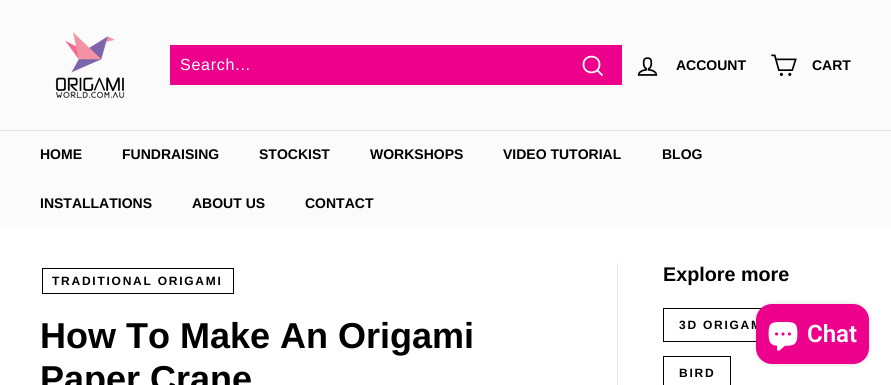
#include <cairo.h>
#include <math.h>
#include <stddef.h>

static cairo_t *ctx;

static void use_color(int r, int g, int b) {
    cairo_set_source_rgb(ctx, r / 255.0, g / 255.0, b / 255.0);
}

static void spaced_text(double x, double y, const char *s, double letter, double word) {
    cairo_move_to(ctx, x, y);
    while (*s) {
        char ch[5] = {0};
        int n = 0;
        do ch[n++] = *s++; while ((*s & 0xC0) == 0x80);
        cairo_show_text(ctx, ch);
        cairo_rel_move_to(ctx, letter + word * (*ch == ' '), 0);
    }
}

static void round_rect(double x, double y, double w, double h, double r) {
    cairo_new_sub_path(ctx);
    cairo_arc(ctx, x + w - r, y + h - r, r, 0, M_PI / 2);
    cairo_arc(ctx, x + r, y + h - r, r, M_PI / 2, M_PI);
    cairo_arc(ctx, x + r, y + r, r, M_PI, 1.5 * M_PI);
    cairo_arc(ctx, x + w - r, y + r, r, 1.5 * M_PI, 2 * M_PI);
    cairo_close_path(ctx);
}

static void shadow(double x, double y, double w, double h, double r, double blur, double alpha) {
    cairo_push_group_with_content(ctx, CAIRO_CONTENT_ALPHA);
    cairo_set_operator(ctx, CAIRO_OPERATOR_SOURCE);
    for (int i = 15; i >= -15 && fmin(w, h) + blur * i / 3 > 0; i -= 2) {
        double e = blur * i / 6;
        cairo_set_source_rgba(ctx, 0, 0, 0, alpha * erfc((i - 1) / 8.5) / 2);
        round_rect(x - e, y - e, w + 2 * e, h + 2 * e, fmax(0, fmin(r + e + blur * .6, fmin(w, h) / 2 + e)));
        cairo_fill(ctx);
    }
    cairo_pattern_t *soft = cairo_pop_group(ctx);
    cairo_mask(ctx, soft);
    cairo_pattern_destroy(soft);
}

static void picture(const char *path, double x, double y, double w, double h) {
    cairo_surface_t *image = cairo_image_surface_create_from_png(path);
    cairo_save(ctx);
    cairo_set_source_surface(ctx, image, x, y);
    cairo_rectangle(ctx, x, y, w, h);
    cairo_fill(ctx);
    cairo_restore(ctx);
    cairo_surface_destroy(image);
}

int main(void) {
    cairo_surface_t *surface = cairo_image_surface_create(CAIRO_FORMAT_RGB24, 891, 385);
    ctx = cairo_create(surface);
    cairo_font_options_t *options = cairo_font_options_create();
    cairo_font_options_set_hint_metrics(options, CAIRO_HINT_METRICS_OFF);
    cairo_font_options_set_hint_style(options, CAIRO_HINT_STYLE_NONE);
    cairo_set_font_options(ctx, options);
    cairo_set_miter_limit(ctx, 4);
    use_color(255, 255, 255);
    cairo_paint(ctx);
    use_color(251, 251, 251);
    cairo_rectangle(ctx, 0, 0, 891, 130);
    cairo_fill(ctx);
    picture("img1.png", 55, 32, 70, 67);
    use_color(237, 0, 140);
    cairo_rectangle(ctx, 170, 45, 452, 40);
    cairo_fill(ctx);
    cairo_select_font_face(ctx, "Arimo", CAIRO_FONT_SLANT_NORMAL, CAIRO_FONT_WEIGHT_NORMAL);
    cairo_set_font_size(ctx, 16);
    use_color(255, 255, 255);
    spaced_text(180, 70, "Search...", 0.75, 0);
    cairo_new_path(ctx);
    cairo_move_to(ctx, 599.5, 64.5);
    cairo_curve_to(ctx, 599.5, 75, 583.5, 75, 583.5, 64.5);
    cairo_curve_to(ctx, 583.5, 54, 599.5, 54, 599.5, 64.5);
    cairo_close_path(ctx);
    cairo_move_to(ctx, 602.5, 75.5);
    cairo_line_to(ctx, 597.5, 70.5);
    cairo_set_line_width(ctx, 1.8);
    cairo_stroke(ctx);
    picture("img2.png", 637, 57, 21, 19);
    cairo_select_font_face(ctx, "Arimo", CAIRO_FONT_SLANT_NORMAL, CAIRO_FONT_WEIGHT_BOLD);
    cairo_set_font_size(ctx, 14);
    use_color(0, 0, 0);
    cairo_move_to(ctx, 676, 70);
    cairo_show_text(ctx, "ACCOUNT");
    picture("img3.png", 771, 54, 26, 22);
    cairo_move_to(ctx, 812, 70);
    cairo_show_text(ctx, "CART");
    use_color(226, 226, 226);
    cairo_rectangle(ctx, 0, 130, 891, 1);
    cairo_fill(ctx);
    use_color(251, 251, 251);
    cairo_rectangle(ctx, 0, 131, 891, 97);
    cairo_fill(ctx);
    use_color(0, 0, 0);
    cairo_move_to(ctx, 40, 159);
    cairo_show_text(ctx, "HOME");
    cairo_move_to(ctx, 122, 159);
    cairo_show_text(ctx, "FUNDRAISING");
    cairo_move_to(ctx, 259, 159);
    cairo_show_text(ctx, "STOCKIST");
    cairo_move_to(ctx, 370, 159);
    cairo_show_text(ctx, "WORKSHOPS");
    cairo_move_to(ctx, 503, 159);
    cairo_show_text(ctx, "VIDEO TUTORIAL");
    cairo_move_to(ctx, 662, 159);
    cairo_show_text(ctx, "BLOG");
    cairo_move_to(ctx, 40, 208);
    cairo_show_text(ctx, "INSTALLATIONS");
    cairo_move_to(ctx, 192, 208);
    cairo_show_text(ctx, "ABOUT US");
    cairo_move_to(ctx, 305, 208);
    cairo_show_text(ctx, "CONTACT");
    cairo_rectangle(ctx, 42.5, 268.5, 191, 25);
    cairo_set_line_width(ctx, 1);
    cairo_stroke(ctx);
    cairo_set_font_size(ctx, 12);
    spaced_text(52, 285, "TRADITIONAL ORIGAMI", 1.75, 0);
    cairo_set_font_size(ctx, 36);
    cairo_move_to(ctx, 40, 348);
    cairo_show_text(ctx, "How To Make An Origami");
    cairo_move_to(ctx, 40, 391);
    cairo_show_text(ctx, "Paper Crane");
    use_color(232, 232, 225);
    cairo_rectangle(ctx, 617, 263, 1, 122);
    cairo_fill(ctx);
    cairo_set_font_size(ctx, 19.75);
    use_color(0, 0, 0);
    cairo_move_to(ctx, 663, 281);
    cairo_show_text(ctx, "Explore more");
    cairo_rectangle(ctx, 663.5, 308.5, 120, 33);
    cairo_stroke(ctx);
    cairo_set_font_size(ctx, 12);
    spaced_text(679, 329, "3D ORIGAM", 1.75, 0);
    cairo_rectangle(ctx, 663.5, 356.5, 67, 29);
    cairo_stroke(ctx);
    spaced_text(679, 377, "BIRD", 1.75, 0);
    use_color(0, 0, 0);
    shadow(756, 304, 113, 60, 16, 2.5, 0.15);
    use_color(237, 0, 140);
    round_rect(756, 304, 113, 60, 16);
    cairo_fill(ctx);
    picture("img4.png", 768, 322, 30, 29);
    cairo_select_font_face(ctx, "Roboto SemiBold", CAIRO_FONT_SLANT_NORMAL, CAIRO_FONT_WEIGHT_NORMAL);
    cairo_set_font_size(ctx, 24);
    use_color(255, 255, 255);
    cairo_move_to(ctx, 807, 342);
    cairo_show_text(ctx, "Chat");
    cairo_surface_write_to_png(surface, "result.png");
    cairo_font_options_destroy(options);
    cairo_destroy(ctx);
    cairo_surface_destroy(surface);
    return 0;
}
